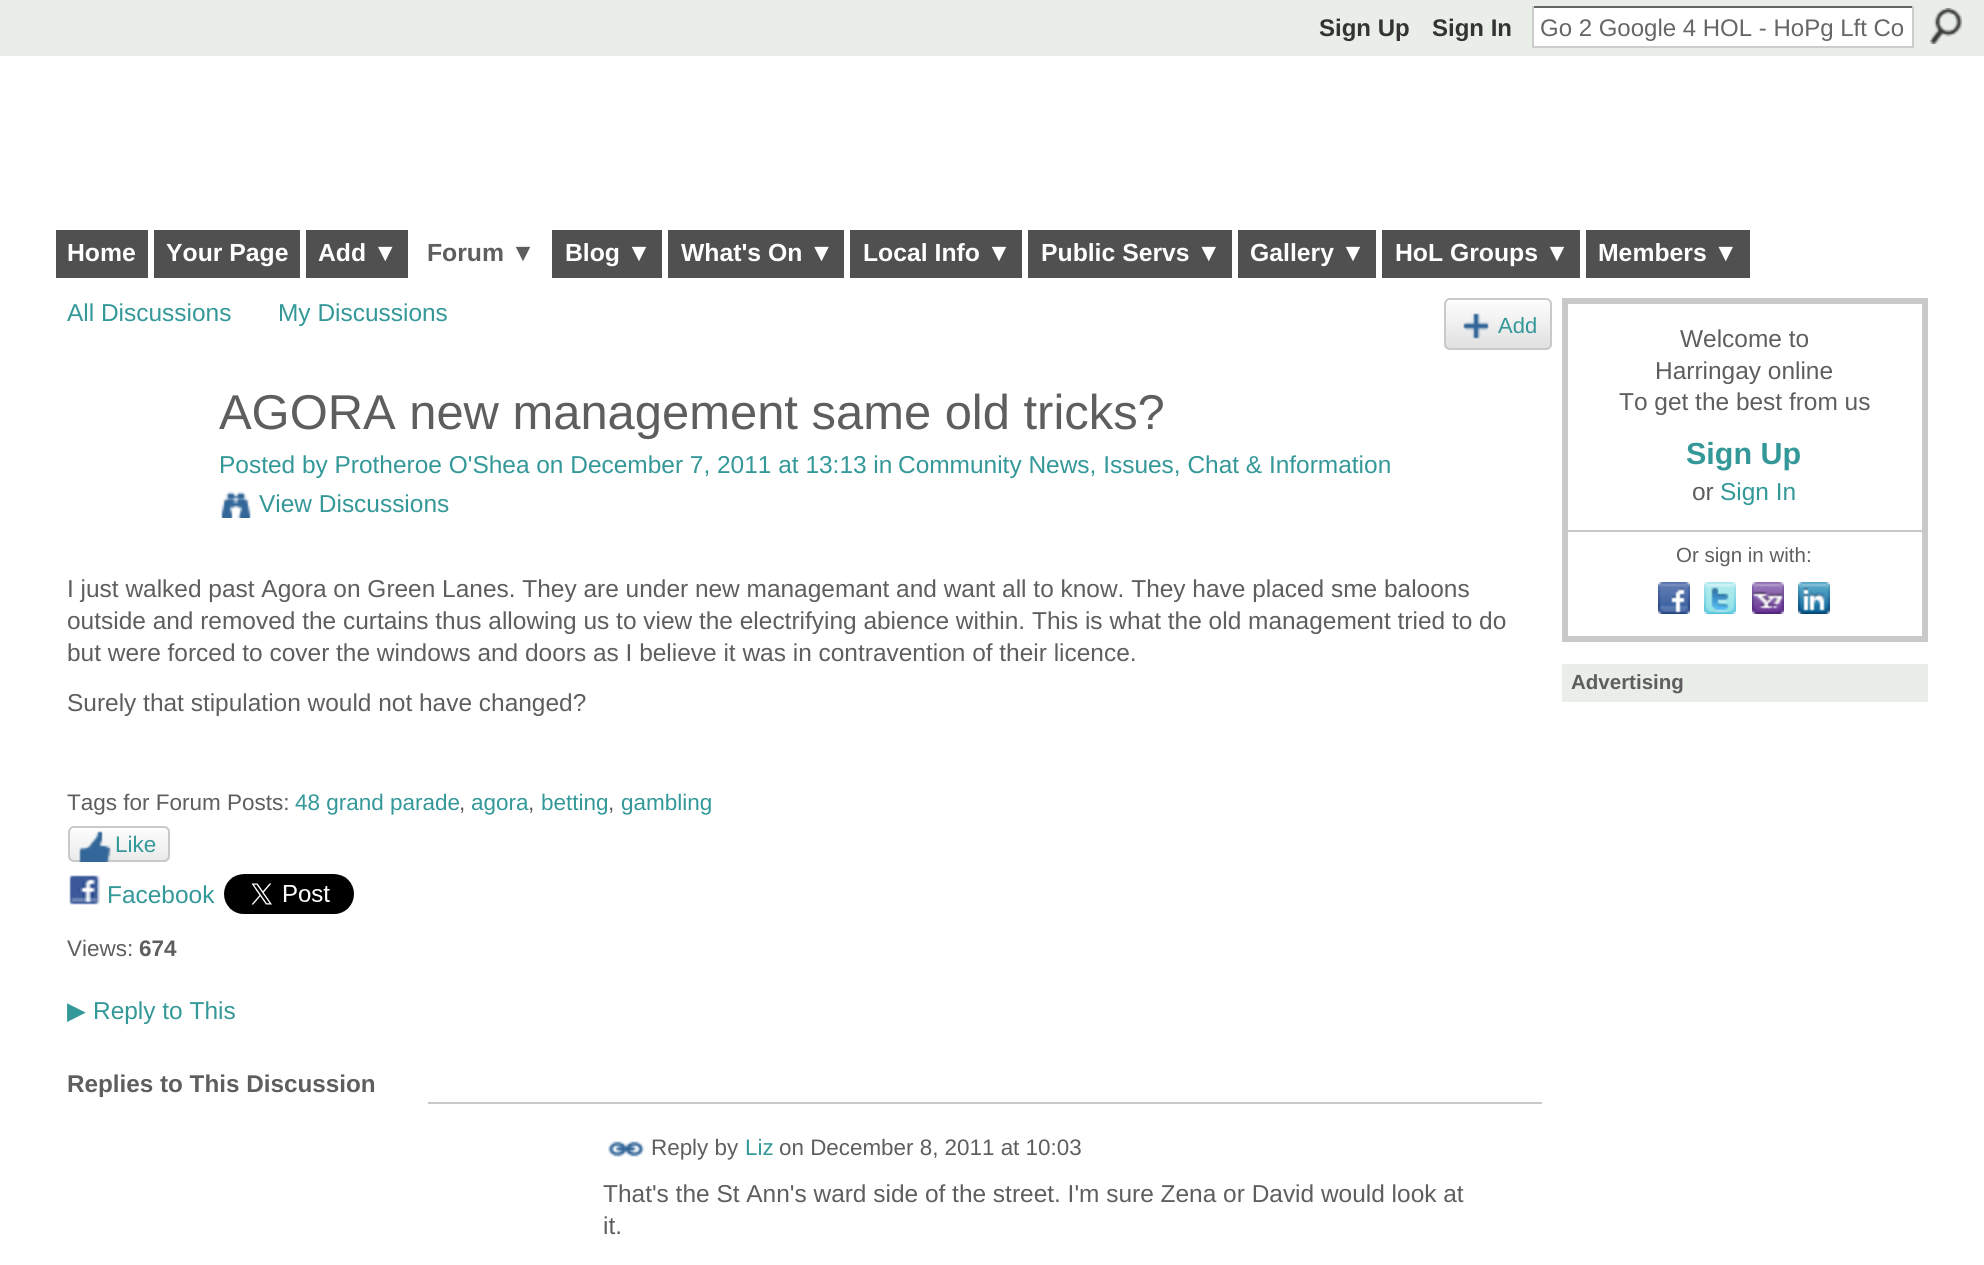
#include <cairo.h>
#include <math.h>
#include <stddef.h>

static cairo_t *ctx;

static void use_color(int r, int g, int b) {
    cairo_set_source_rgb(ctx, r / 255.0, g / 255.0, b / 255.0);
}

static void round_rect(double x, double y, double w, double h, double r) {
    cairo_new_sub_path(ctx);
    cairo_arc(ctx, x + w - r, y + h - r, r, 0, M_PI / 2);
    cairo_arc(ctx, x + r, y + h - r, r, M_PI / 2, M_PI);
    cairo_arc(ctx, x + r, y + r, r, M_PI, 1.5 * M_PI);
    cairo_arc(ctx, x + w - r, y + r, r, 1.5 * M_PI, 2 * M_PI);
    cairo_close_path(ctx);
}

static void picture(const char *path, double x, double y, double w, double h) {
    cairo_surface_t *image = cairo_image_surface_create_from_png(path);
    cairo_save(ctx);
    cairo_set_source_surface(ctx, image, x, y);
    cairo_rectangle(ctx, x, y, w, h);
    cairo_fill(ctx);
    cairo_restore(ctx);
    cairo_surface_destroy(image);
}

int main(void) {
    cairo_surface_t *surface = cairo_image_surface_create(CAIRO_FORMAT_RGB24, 1984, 1265);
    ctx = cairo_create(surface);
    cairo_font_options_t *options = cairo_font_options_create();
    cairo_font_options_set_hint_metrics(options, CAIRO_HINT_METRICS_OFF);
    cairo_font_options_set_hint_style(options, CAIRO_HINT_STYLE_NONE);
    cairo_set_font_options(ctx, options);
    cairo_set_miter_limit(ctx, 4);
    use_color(255, 255, 255);
    cairo_paint(ctx);
    use_color(233, 238, 232);
    cairo_rectangle(ctx, 0, 0, 1984, 56);
    cairo_fill(ctx);
    cairo_select_font_face(ctx, "Liberation Sans", CAIRO_FONT_SLANT_NORMAL, CAIRO_FONT_WEIGHT_BOLD);
    cairo_set_font_size(ctx, 24);
    use_color(51, 51, 51);
    cairo_move_to(ctx, 1319, 36);
    cairo_show_text(ctx, "Sign Up");
    cairo_move_to(ctx, 1432, 36);
    cairo_show_text(ctx, "Sign In");
    use_color(255, 255, 255);
    cairo_rectangle(ctx, 1534, 8, 378, 38);
    cairo_fill(ctx);
    use_color(102, 102, 102);
    cairo_rectangle(ctx, 1532, 6, 382, 2);
    cairo_fill(ctx);
    use_color(204, 204, 204);
    cairo_rectangle(ctx, 1912, 6, 2, 42);
    cairo_fill(ctx);
    cairo_rectangle(ctx, 1532, 46, 382, 2);
    cairo_fill(ctx);
    cairo_rectangle(ctx, 1532, 6, 2, 42);
    cairo_fill(ctx);
    cairo_select_font_face(ctx, "Liberation Sans", CAIRO_FONT_SLANT_NORMAL, CAIRO_FONT_WEIGHT_NORMAL);
    use_color(102, 102, 102);
    cairo_move_to(ctx, 1540, 36);
    cairo_show_text(ctx, "Go 2 Google 4 HOL - HoPg Lft Co");
    picture("img1.png", 1930, 8, 32, 36);
    use_color(80, 80, 80);
    cairo_rectangle(ctx, 56, 230, 92, 48);
    cairo_fill(ctx);
    cairo_select_font_face(ctx, "Liberation Sans", CAIRO_FONT_SLANT_NORMAL, CAIRO_FONT_WEIGHT_BOLD);
    cairo_set_font_size(ctx, 24.75);
    use_color(255, 255, 255);
    cairo_move_to(ctx, 67, 261);
    cairo_show_text(ctx, "Home");
    use_color(80, 80, 80);
    cairo_rectangle(ctx, 154, 230, 146, 48);
    cairo_fill(ctx);
    use_color(255, 255, 255);
    cairo_move_to(ctx, 166, 261);
    cairo_show_text(ctx, "Your Page");
    use_color(80, 80, 80);
    cairo_rectangle(ctx, 306, 230, 102, 48);
    cairo_fill(ctx);
    use_color(255, 255, 255);
    cairo_move_to(ctx, 318, 261);
    cairo_show_text(ctx, "Add ▼");
    use_color(94, 94, 94);
    cairo_move_to(ctx, 427, 261);
    cairo_show_text(ctx, "Forum ▼");
    use_color(80, 80, 80);
    cairo_rectangle(ctx, 552, 230, 110, 48);
    cairo_fill(ctx);
    use_color(255, 255, 255);
    cairo_move_to(ctx, 565, 261);
    cairo_show_text(ctx, "Blog ▼");
    use_color(80, 80, 80);
    cairo_rectangle(ctx, 668, 230, 176, 48);
    cairo_fill(ctx);
    use_color(255, 255, 255);
    cairo_move_to(ctx, 681, 261);
    cairo_show_text(ctx, "What's On ▼");
    use_color(80, 80, 80);
    cairo_rectangle(ctx, 850, 230, 172, 48);
    cairo_fill(ctx);
    use_color(255, 255, 255);
    cairo_move_to(ctx, 863, 261);
    cairo_show_text(ctx, "Local Info ▼");
    use_color(80, 80, 80);
    cairo_rectangle(ctx, 1028, 230, 204, 48);
    cairo_fill(ctx);
    use_color(255, 255, 255);
    cairo_move_to(ctx, 1041, 261);
    cairo_show_text(ctx, "Public Servs ▼");
    use_color(80, 80, 80);
    cairo_rectangle(ctx, 1238, 230, 138, 48);
    cairo_fill(ctx);
    use_color(255, 255, 255);
    cairo_move_to(ctx, 1250, 261);
    cairo_show_text(ctx, "Gallery ▼");
    use_color(80, 80, 80);
    cairo_rectangle(ctx, 1382, 230, 198, 48);
    cairo_fill(ctx);
    use_color(255, 255, 255);
    cairo_move_to(ctx, 1395, 261);
    cairo_show_text(ctx, "HoL Groups ▼");
    use_color(80, 80, 80);
    cairo_rectangle(ctx, 1586, 230, 164, 48);
    cairo_fill(ctx);
    use_color(255, 255, 255);
    cairo_move_to(ctx, 1598, 261);
    cairo_show_text(ctx, "Members ▼");
    cairo_select_font_face(ctx, "Liberation Sans", CAIRO_FONT_SLANT_NORMAL, CAIRO_FONT_WEIGHT_NORMAL);
    cairo_set_font_size(ctx, 24.45);
    use_color(52, 152, 153);
    cairo_move_to(ctx, 67, 321);
    cairo_show_text(ctx, "All Discussions");
    cairo_move_to(ctx, 278, 321);
    cairo_show_text(ctx, "My Discussions");
    picture("img2.png", 1444, 302, 108, 48);
    round_rect(1445, 299, 106, 50, 5);
    use_color(201, 201, 201);
    cairo_stroke(ctx);
    picture("img3.png", 1463, 313, 26, 26);
    cairo_set_font_size(ctx, 22);
    use_color(52, 152, 153);
    cairo_move_to(ctx, 1498, 333);
    cairo_show_text(ctx, "Add");
    cairo_set_font_size(ctx, 48.9);
    use_color(94, 94, 94);
    cairo_move_to(ctx, 219, 429);
    cairo_show_text(ctx, "AGORA new management same old tricks?");
    cairo_set_font_size(ctx, 24.45);
    use_color(52, 152, 153);
    cairo_move_to(ctx, 219, 473);
    cairo_show_text(ctx, "Posted by Protheroe O'Shea on December 7, 2011 at 13:13 in");
    cairo_move_to(ctx, 898, 473);
    cairo_show_text(ctx, "Community News, Issues, Chat & Information");
    picture("img4.png", 221, 491, 30, 27);
    cairo_move_to(ctx, 259, 512);
    cairo_show_text(ctx, "View Discussions");
    use_color(94, 94, 94);
    cairo_move_to(ctx, 67, 597);
    cairo_show_text(ctx, "I just walked past Agora on Green Lanes. They are under new managemant and want all to know. They have placed sme baloons");
    cairo_move_to(ctx, 67, 629);
    cairo_show_text(ctx, "outside and removed the curtains thus allowing us to view the electrifying abience within. This is what the old management tried to do");
    cairo_move_to(ctx, 67, 661);
    cairo_show_text(ctx, "but were forced to cover the windows and doors as I believe it was in contravention of their licence.");
    cairo_move_to(ctx, 67, 711);
    cairo_show_text(ctx, "Surely that stipulation would not have changed?");
    cairo_set_font_size(ctx, 22.5);
    cairo_move_to(ctx, 67, 810);
    cairo_show_text(ctx, "Tags for Forum Posts:");
    use_color(52, 152, 153);
    cairo_move_to(ctx, 295, 810);
    cairo_show_text(ctx, "48 grand parade");
    use_color(94, 94, 94);
    cairo_move_to(ctx, 459, 810);
    cairo_show_text(ctx, ",");
    use_color(52, 152, 153);
    cairo_move_to(ctx, 471, 810);
    cairo_show_text(ctx, "agora");
    use_color(94, 94, 94);
    cairo_move_to(ctx, 528, 810);
    cairo_show_text(ctx, ",");
    use_color(52, 152, 153);
    cairo_move_to(ctx, 541, 810);
    cairo_show_text(ctx, "betting");
    use_color(94, 94, 94);
    cairo_move_to(ctx, 608, 810);
    cairo_show_text(ctx, ",");
    use_color(52, 152, 153);
    cairo_move_to(ctx, 621, 810);
    cairo_show_text(ctx, "gambling");
    picture("img5.png", 68, 830, 102, 32);
    round_rect(69, 827, 100, 34, 5);
    use_color(201, 201, 201);
    cairo_stroke(ctx);
    picture("img6.png", 79, 831, 32, 31);
    use_color(52, 152, 153);
    cairo_move_to(ctx, 115, 852);
    cairo_show_text(ctx, "Like");
    picture("img7.png", 69, 875, 31, 30);
    cairo_set_font_size(ctx, 24.45);
    cairo_move_to(ctx, 107, 903);
    cairo_show_text(ctx, "Facebook");
    picture("img8.png", 224, 874, 130, 40);
    cairo_set_font_size(ctx, 22.5);
    use_color(94, 94, 94);
    cairo_move_to(ctx, 67, 956);
    cairo_show_text(ctx, "Views:");
    cairo_select_font_face(ctx, "Liberation Sans", CAIRO_FONT_SLANT_NORMAL, CAIRO_FONT_WEIGHT_BOLD);
    cairo_move_to(ctx, 139, 956);
    cairo_show_text(ctx, "674");
    cairo_select_font_face(ctx, "DejaVu Sans", CAIRO_FONT_SLANT_NORMAL, CAIRO_FONT_WEIGHT_NORMAL);
    cairo_set_font_size(ctx, 24.45);
    use_color(52, 152, 153);
    cairo_move_to(ctx, 67, 1019);
    cairo_show_text(ctx, "▶");
    cairo_select_font_face(ctx, "Liberation Sans", CAIRO_FONT_SLANT_NORMAL, CAIRO_FONT_WEIGHT_NORMAL);
    cairo_move_to(ctx, 93, 1019);
    cairo_show_text(ctx, "Reply to This");
    cairo_select_font_face(ctx, "Liberation Sans", CAIRO_FONT_SLANT_NORMAL, CAIRO_FONT_WEIGHT_BOLD);
    cairo_set_font_size(ctx, 24.25);
    use_color(94, 94, 94);
    cairo_move_to(ctx, 67, 1092);
    cairo_show_text(ctx, "Replies to This Discussion");
    use_color(201, 201, 201);
    cairo_rectangle(ctx, 428, 1102, 1114, 2);
    cairo_fill(ctx);
    picture("img9.png", 608, 1141, 37, 16);
    cairo_select_font_face(ctx, "Liberation Sans", CAIRO_FONT_SLANT_NORMAL, CAIRO_FONT_WEIGHT_NORMAL);
    cairo_set_font_size(ctx, 22.4);
    use_color(94, 94, 94);
    cairo_move_to(ctx, 651, 1155);
    cairo_show_text(ctx, "Reply by");
    use_color(52, 152, 153);
    cairo_move_to(ctx, 745, 1155);
    cairo_show_text(ctx, "Liz");
    use_color(94, 94, 94);
    cairo_move_to(ctx, 779, 1155);
    cairo_show_text(ctx, "on December 8, 2011 at 10:03");
    cairo_set_font_size(ctx, 24.45);
    cairo_move_to(ctx, 603, 1202);
    cairo_show_text(ctx, "That's the St Ann's ward side of the street. I'm sure Zena or David would look at");
    cairo_move_to(ctx, 603, 1234);
    cairo_show_text(ctx, "it.");
    cairo_rectangle(ctx, 1565, 301, 360, 338);
    use_color(201, 201, 201);
    cairo_set_line_width(ctx, 6);
    cairo_stroke(ctx);
    use_color(94, 94, 94);
    cairo_move_to(ctx, 1680, 347);
    cairo_show_text(ctx, "Welcome to");
    cairo_move_to(ctx, 1655, 379);
    cairo_show_text(ctx, "Harringay online");
    cairo_move_to(ctx, 1619, 410);
    cairo_show_text(ctx, "To get the best from us");
    cairo_select_font_face(ctx, "Liberation Sans", CAIRO_FONT_SLANT_NORMAL, CAIRO_FONT_WEIGHT_BOLD);
    cairo_set_font_size(ctx, 30.5);
    use_color(52, 152, 153);
    cairo_move_to(ctx, 1686, 464);
    cairo_show_text(ctx, "Sign Up");
    cairo_select_font_face(ctx, "Liberation Sans", CAIRO_FONT_SLANT_NORMAL, CAIRO_FONT_WEIGHT_NORMAL);
    cairo_set_font_size(ctx, 24.45);
    use_color(94, 94, 94);
    cairo_move_to(ctx, 1692, 500);
    cairo_show_text(ctx, "or");
    use_color(52, 152, 153);
    cairo_move_to(ctx, 1720, 500);
    cairo_show_text(ctx, "Sign In");
    use_color(201, 201, 201);
    cairo_rectangle(ctx, 1568, 530, 354, 2);
    cairo_fill(ctx);
    cairo_set_font_size(ctx, 20.5);
    use_color(94, 94, 94);
    cairo_move_to(ctx, 1676, 562);
    cairo_show_text(ctx, "Or sign in with:");
    picture("img10.png", 1658, 582, 32, 32);
    picture("img11.png", 1704, 582, 32, 32);
    picture("img12.png", 1752, 582, 32, 32);
    picture("img13.png", 1798, 582, 32, 32);
    use_color(233, 238, 232);
    cairo_rectangle(ctx, 1562, 664, 366, 38);
    cairo_fill(ctx);
    cairo_select_font_face(ctx, "Liberation Sans", CAIRO_FONT_SLANT_NORMAL, CAIRO_FONT_WEIGHT_BOLD);
    use_color(94, 94, 94);
    cairo_move_to(ctx, 1571, 689);
    cairo_show_text(ctx, "Advertising");
    cairo_surface_write_to_png(surface, "result.png");
    cairo_font_options_destroy(options);
    cairo_destroy(ctx);
    cairo_surface_destroy(surface);
    return 0;
}
